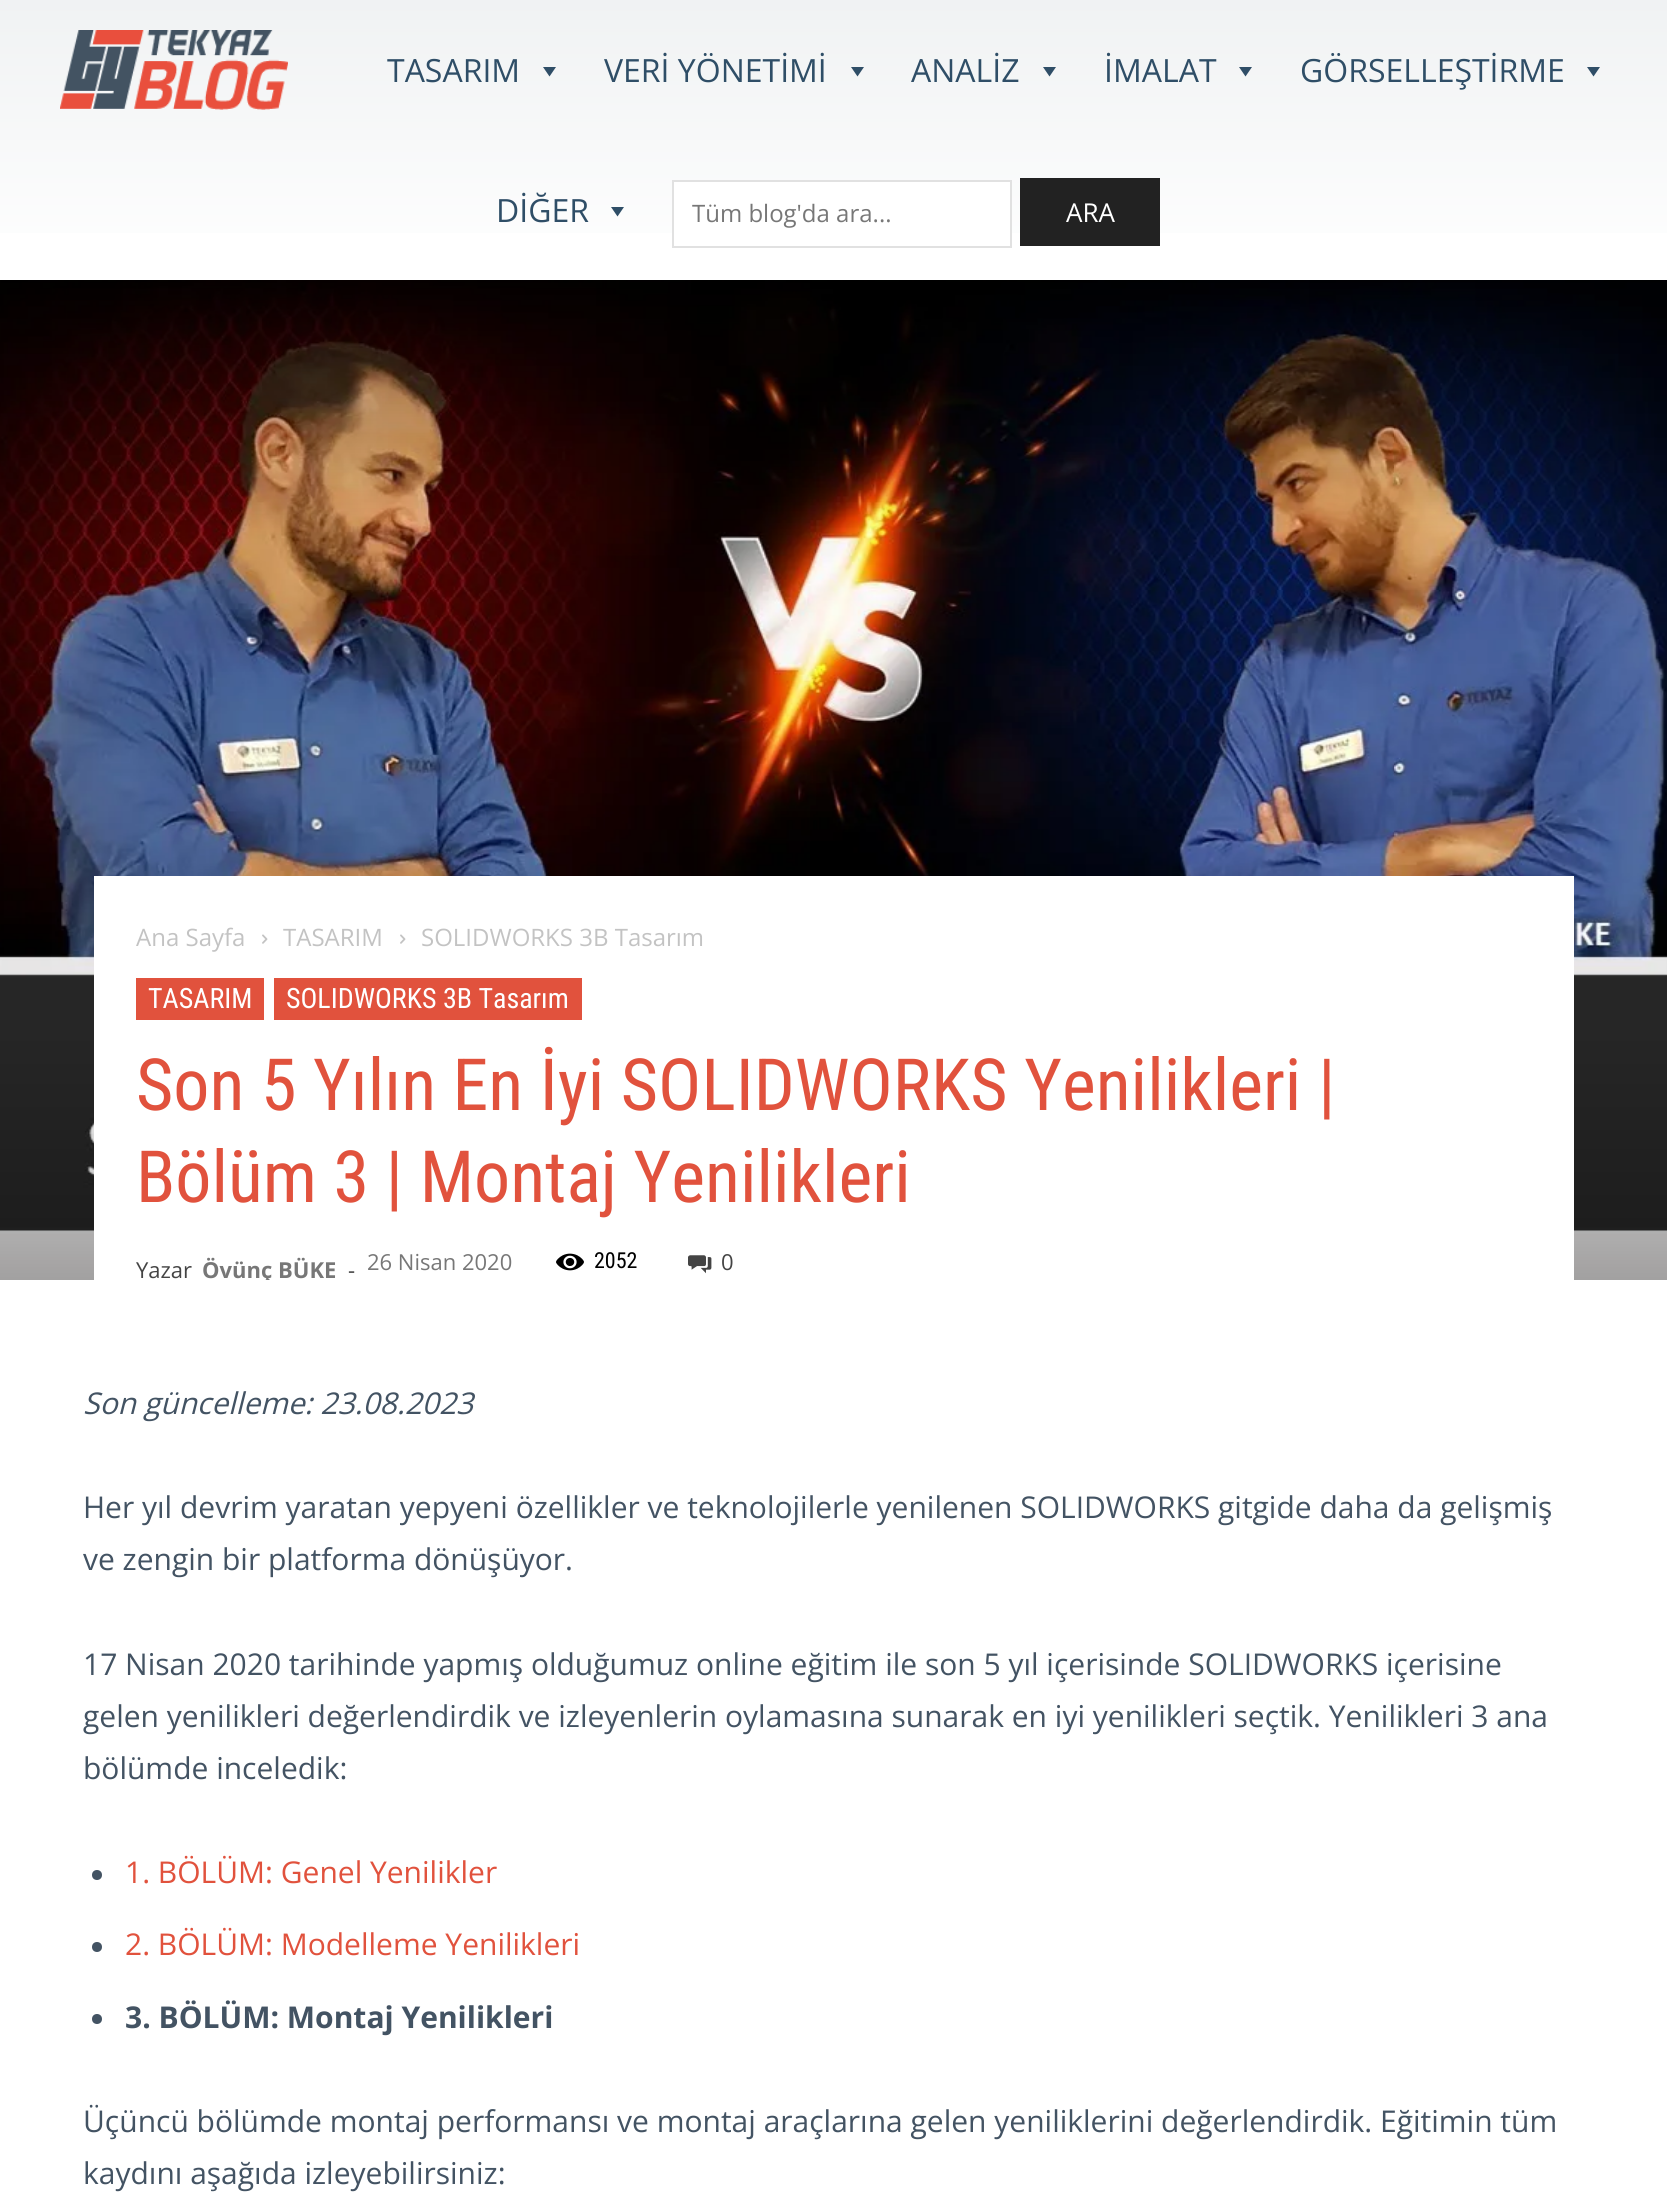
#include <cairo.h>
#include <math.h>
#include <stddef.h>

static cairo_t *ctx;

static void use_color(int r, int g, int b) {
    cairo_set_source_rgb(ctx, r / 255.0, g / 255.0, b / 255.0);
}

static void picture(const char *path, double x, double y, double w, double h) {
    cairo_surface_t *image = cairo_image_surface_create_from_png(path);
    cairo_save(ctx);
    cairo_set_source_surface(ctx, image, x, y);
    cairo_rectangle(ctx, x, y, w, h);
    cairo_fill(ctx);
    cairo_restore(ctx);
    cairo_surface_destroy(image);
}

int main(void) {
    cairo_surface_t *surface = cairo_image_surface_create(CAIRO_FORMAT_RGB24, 1667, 2203);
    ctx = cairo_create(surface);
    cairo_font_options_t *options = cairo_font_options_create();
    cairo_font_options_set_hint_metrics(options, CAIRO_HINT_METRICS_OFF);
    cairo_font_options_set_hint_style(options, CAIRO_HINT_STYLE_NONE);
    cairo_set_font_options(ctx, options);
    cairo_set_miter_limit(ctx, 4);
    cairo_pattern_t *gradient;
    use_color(255, 255, 255);
    cairo_paint(ctx);
    gradient = cairo_pattern_create_linear(834, 0, 834, 280);
    cairo_pattern_add_color_stop_rgba(gradient, 0, 0.941, 0.949, 0.953, 1);
    cairo_pattern_add_color_stop_rgba(gradient, 1, 1, 1, 1, 1);
    cairo_set_source(ctx, gradient);
    cairo_pattern_destroy(gradient);
    cairo_rectangle(ctx, 0, 0, 1667, 233);
    cairo_fill(ctx);
    picture("img1.png", 60, 30, 228, 80);
    cairo_select_font_face(ctx, "Open Sans", CAIRO_FONT_SLANT_NORMAL, CAIRO_FONT_WEIGHT_NORMAL);
    cairo_set_font_size(ctx, 32);
    use_color(47, 78, 103);
    cairo_move_to(ctx, 387, 82);
    cairo_show_text(ctx, "TASARIM");
    cairo_new_path(ctx);
    cairo_move_to(ctx, 556, 67);
    cairo_line_to(ctx, 549.5, 76.5);
    cairo_line_to(ctx, 543, 67);
    cairo_close_path(ctx);
    cairo_fill(ctx);
    cairo_move_to(ctx, 604, 82);
    cairo_show_text(ctx, "VERİ YÖNETİMİ");
    cairo_new_path(ctx);
    cairo_move_to(ctx, 864, 67);
    cairo_line_to(ctx, 857.5, 76.5);
    cairo_line_to(ctx, 851, 67);
    cairo_close_path(ctx);
    cairo_fill(ctx);
    cairo_move_to(ctx, 911, 82);
    cairo_show_text(ctx, "ANALİZ");
    cairo_new_path(ctx);
    cairo_move_to(ctx, 1056, 67);
    cairo_line_to(ctx, 1049.5, 76.5);
    cairo_line_to(ctx, 1043, 67);
    cairo_close_path(ctx);
    cairo_fill(ctx);
    cairo_move_to(ctx, 1104, 82);
    cairo_show_text(ctx, "İMALAT");
    cairo_new_path(ctx);
    cairo_move_to(ctx, 1252, 67);
    cairo_line_to(ctx, 1245.5, 76.5);
    cairo_line_to(ctx, 1239, 67);
    cairo_close_path(ctx);
    cairo_fill(ctx);
    cairo_move_to(ctx, 1300, 82);
    cairo_show_text(ctx, "GÖRSELLEŞTİRME");
    cairo_new_path(ctx);
    cairo_move_to(ctx, 1600, 67);
    cairo_line_to(ctx, 1593.5, 76.5);
    cairo_line_to(ctx, 1587, 67);
    cairo_close_path(ctx);
    cairo_fill(ctx);
    cairo_move_to(ctx, 496, 222);
    cairo_show_text(ctx, "DİĞER");
    cairo_new_path(ctx);
    cairo_move_to(ctx, 624, 207);
    cairo_line_to(ctx, 617.5, 216.5);
    cairo_line_to(ctx, 611, 207);
    cairo_close_path(ctx);
    cairo_fill(ctx);
    use_color(255, 255, 255);
    cairo_rectangle(ctx, 674, 182, 336, 51);
    cairo_fill(ctx);
    cairo_rectangle(ctx, 673, 181, 338, 66);
    use_color(225, 225, 225);
    cairo_stroke(ctx);
    cairo_set_font_size(ctx, 24);
    use_color(119, 119, 119);
    cairo_move_to(ctx, 692, 222);
    cairo_show_text(ctx, "Tüm blog'da ara...");
    use_color(34, 34, 34);
    cairo_rectangle(ctx, 1020, 178, 140, 68);
    cairo_fill(ctx);
    cairo_set_font_size(ctx, 26);
    use_color(255, 255, 255);
    cairo_move_to(ctx, 1066, 222);
    cairo_show_text(ctx, "ARA");
    picture("img2.png", 0, 280, 1667, 1000);
    cairo_rectangle(ctx, 94, 876, 1480, 404);
    cairo_fill(ctx);
    cairo_set_font_size(ctx, 24);
    use_color(195, 195, 195);
    cairo_move_to(ctx, 136, 946);
    cairo_show_text(ctx, "Ana Sayfa");
    picture("img3.png", 262, 934, 6, 10);
    cairo_move_to(ctx, 283, 946);
    cairo_show_text(ctx, "TASARIM");
    picture("img3.png", 400, 934, 6, 10);
    cairo_move_to(ctx, 421, 946);
    cairo_show_text(ctx, "SOLIDWORKS 3B Tasarım");
    use_color(225, 82, 61);
    cairo_rectangle(ctx, 136, 978, 128, 42);
    cairo_fill(ctx);
    cairo_select_font_face(ctx, "Roboto Condensed", CAIRO_FONT_SLANT_NORMAL, CAIRO_FONT_WEIGHT_NORMAL);
    cairo_set_font_size(ctx, 28);
    use_color(255, 255, 255);
    cairo_move_to(ctx, 148, 1008);
    cairo_show_text(ctx, "TASARIM");
    use_color(225, 82, 61);
    cairo_rectangle(ctx, 274, 978, 308, 42);
    cairo_fill(ctx);
    use_color(255, 255, 255);
    cairo_move_to(ctx, 286, 1008);
    cairo_show_text(ctx, "SOLIDWORKS 3B Tasarım");
    cairo_set_font_size(ctx, 72);
    use_color(225, 82, 61);
    cairo_move_to(ctx, 136, 1110);
    cairo_show_text(ctx, "Son 5 Yılın En İyi SOLIDWORKS Yenilikleri |");
    cairo_move_to(ctx, 136, 1202);
    cairo_show_text(ctx, "Bölüm 3 | Montaj Yenilikleri");
    cairo_select_font_face(ctx, "Open Sans", CAIRO_FONT_SLANT_NORMAL, CAIRO_FONT_WEIGHT_NORMAL);
    cairo_set_font_size(ctx, 22);
    use_color(68, 68, 68);
    cairo_move_to(ctx, 136, 1278);
    cairo_show_text(ctx, "Yazar");
    cairo_save(ctx);
    cairo_rectangle(ctx, 0, 280, 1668, 1000);
    cairo_clip(ctx);
    cairo_select_font_face(ctx, "Open Sans", CAIRO_FONT_SLANT_NORMAL, CAIRO_FONT_WEIGHT_BOLD);
    use_color(119, 119, 119);
    cairo_move_to(ctx, 202, 1278);
    cairo_show_text(ctx, "Övünç BÜKE");
    cairo_restore(ctx);
    cairo_move_to(ctx, 348, 1278);
    cairo_show_text(ctx, "-");
    use_color(119, 119, 119);
    cairo_move_to(ctx, 367, 1270);
    cairo_show_text(ctx, "26 Nisan 2020");
    picture("img4.png", 556, 1253, 28, 18);
    cairo_select_font_face(ctx, "Roboto Condensed", CAIRO_FONT_SLANT_NORMAL, CAIRO_FONT_WEIGHT_NORMAL);
    use_color(0, 0, 0);
    cairo_move_to(ctx, 594, 1268);
    cairo_show_text(ctx, "2052");
    picture("img5.png", 688, 1255, 24, 19);
    cairo_select_font_face(ctx, "Open Sans", CAIRO_FONT_SLANT_NORMAL, CAIRO_FONT_WEIGHT_NORMAL);
    use_color(68, 68, 68);
    cairo_move_to(ctx, 721, 1270);
    cairo_show_text(ctx, "0");
    cairo_select_font_face(ctx, "Open Sans", CAIRO_FONT_SLANT_ITALIC, CAIRO_FONT_WEIGHT_NORMAL);
    cairo_set_font_size(ctx, 30);
    use_color(67, 83, 99);
    cairo_move_to(ctx, 83, 1414);
    cairo_show_text(ctx, "Son güncelleme: 23.08.2023");
    cairo_select_font_face(ctx, "Open Sans", CAIRO_FONT_SLANT_NORMAL, CAIRO_FONT_WEIGHT_NORMAL);
    cairo_move_to(ctx, 83, 1518);
    cairo_show_text(ctx, "Her yıl devrim yaratan yepyeni özellikler ve teknolojilerle yenilenen SOLIDWORKS gitgide daha da gelişmiş");
    cairo_move_to(ctx, 83, 1570);
    cairo_show_text(ctx, "ve zengin bir platforma dönüşüyor.");
    cairo_move_to(ctx, 83, 1675);
    cairo_show_text(ctx, "17 Nisan 2020 tarihinde yapmış olduğumuz online eğitim ile son 5 yıl içerisinde SOLIDWORKS içerisine");
    cairo_move_to(ctx, 83, 1727);
    cairo_show_text(ctx, "gelen yenilikleri değerlendirdik ve izleyenlerin oylamasına sunarak en iyi yenilikleri seçtik. Yenilikleri 3 ana");
    cairo_move_to(ctx, 83, 1779);
    cairo_show_text(ctx, "bölümde inceledik:");
    cairo_new_path(ctx);
    cairo_arc(ctx, 97, 1875, 5, 0, 2 * M_PI);
    cairo_fill(ctx);
    use_color(225, 82, 61);
    cairo_move_to(ctx, 125, 1883);
    cairo_show_text(ctx, "1. BÖLÜM: Genel Yenilikler");
    use_color(67, 83, 99);
    cairo_new_path(ctx);
    cairo_arc(ctx, 97, 1947, 5, 0, 2 * M_PI);
    cairo_fill(ctx);
    use_color(225, 82, 61);
    cairo_move_to(ctx, 125, 1955);
    cairo_show_text(ctx, "2. BÖLÜM: Modelleme Yenilikleri");
    use_color(67, 83, 99);
    cairo_new_path(ctx);
    cairo_arc(ctx, 97, 2019, 5, 0, 2 * M_PI);
    cairo_fill(ctx);
    cairo_select_font_face(ctx, "Open Sans", CAIRO_FONT_SLANT_NORMAL, CAIRO_FONT_WEIGHT_BOLD);
    cairo_move_to(ctx, 125, 2028);
    cairo_show_text(ctx, "3. BÖLÜM: Montaj Yenilikleri");
    cairo_select_font_face(ctx, "Open Sans", CAIRO_FONT_SLANT_NORMAL, CAIRO_FONT_WEIGHT_NORMAL);
    cairo_move_to(ctx, 83, 2132);
    cairo_show_text(ctx, "Üçüncü bölümde montaj performansı ve montaj araçlarına gelen yeniliklerini değerlendirdik. Eğitimin tüm");
    cairo_move_to(ctx, 83, 2184);
    cairo_show_text(ctx, "kaydını aşağıda izleyebilirsiniz:");
    cairo_surface_write_to_png(surface, "result.png");
    cairo_font_options_destroy(options);
    cairo_destroy(ctx);
    cairo_surface_destroy(surface);
    return 0;
}
